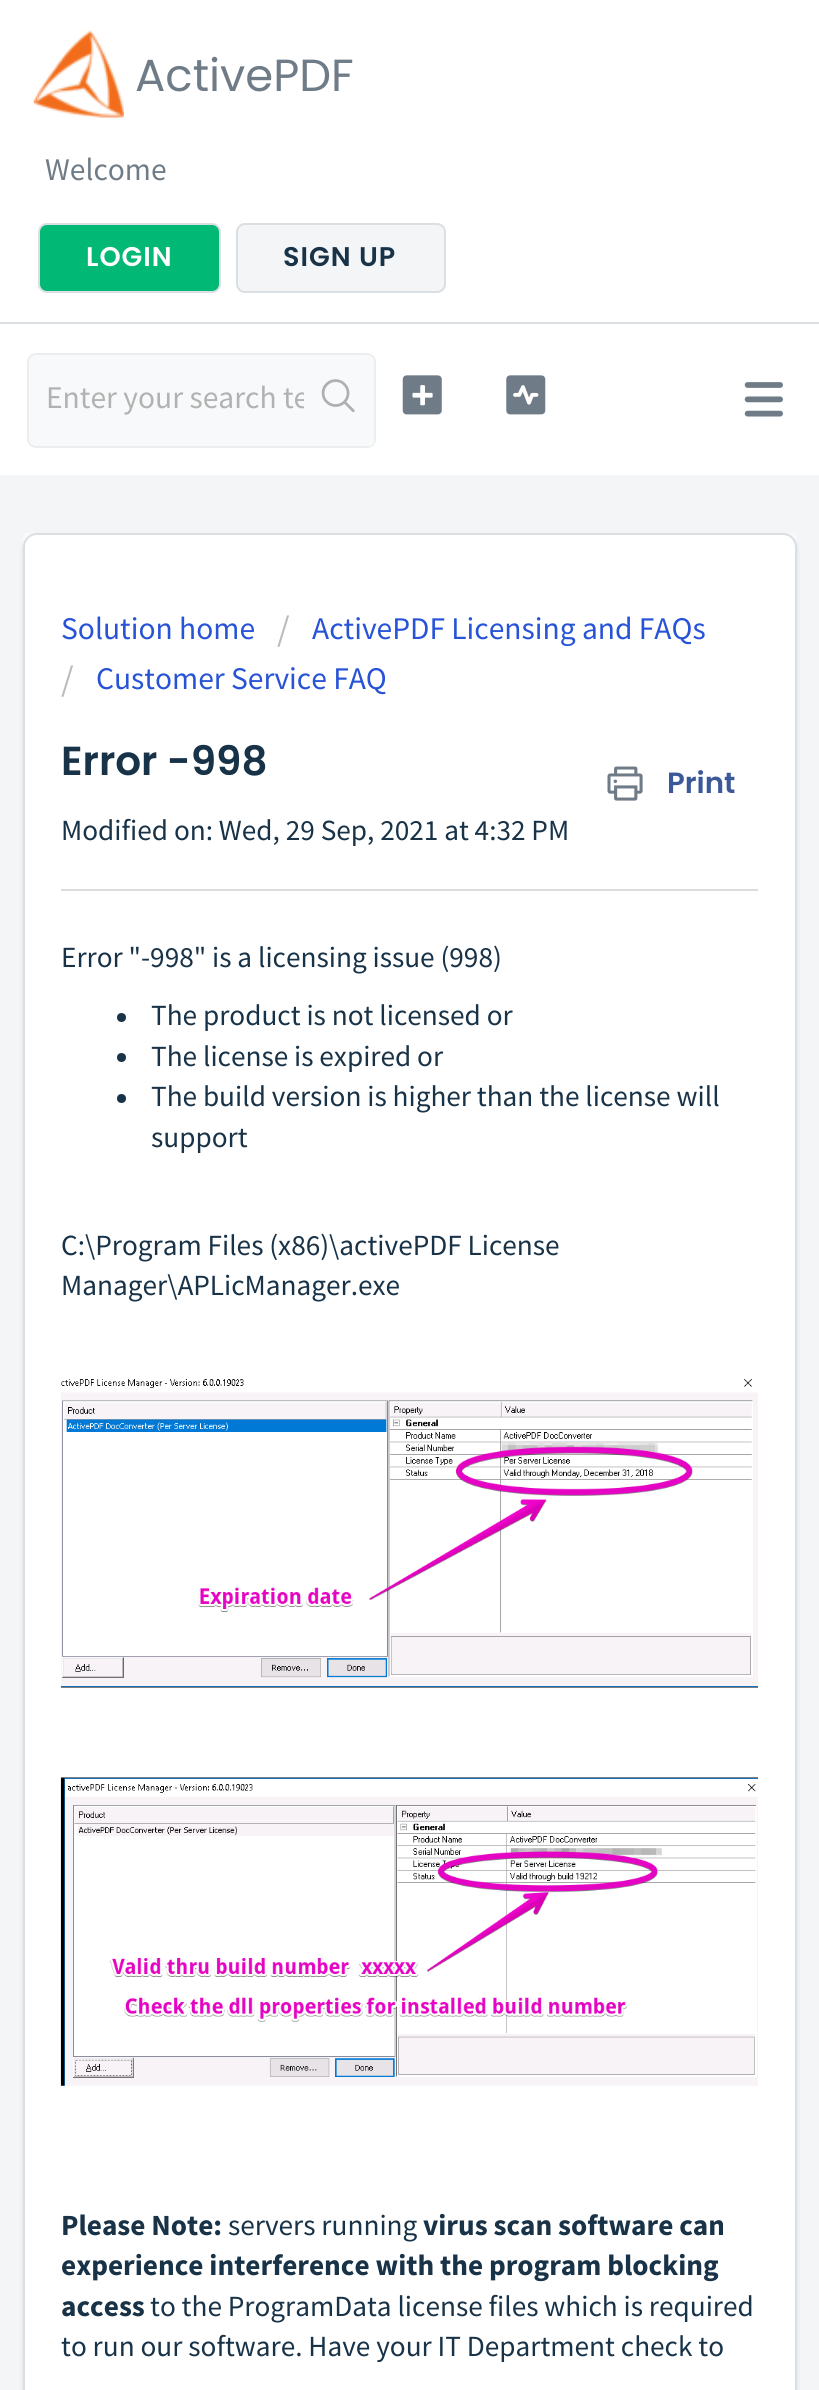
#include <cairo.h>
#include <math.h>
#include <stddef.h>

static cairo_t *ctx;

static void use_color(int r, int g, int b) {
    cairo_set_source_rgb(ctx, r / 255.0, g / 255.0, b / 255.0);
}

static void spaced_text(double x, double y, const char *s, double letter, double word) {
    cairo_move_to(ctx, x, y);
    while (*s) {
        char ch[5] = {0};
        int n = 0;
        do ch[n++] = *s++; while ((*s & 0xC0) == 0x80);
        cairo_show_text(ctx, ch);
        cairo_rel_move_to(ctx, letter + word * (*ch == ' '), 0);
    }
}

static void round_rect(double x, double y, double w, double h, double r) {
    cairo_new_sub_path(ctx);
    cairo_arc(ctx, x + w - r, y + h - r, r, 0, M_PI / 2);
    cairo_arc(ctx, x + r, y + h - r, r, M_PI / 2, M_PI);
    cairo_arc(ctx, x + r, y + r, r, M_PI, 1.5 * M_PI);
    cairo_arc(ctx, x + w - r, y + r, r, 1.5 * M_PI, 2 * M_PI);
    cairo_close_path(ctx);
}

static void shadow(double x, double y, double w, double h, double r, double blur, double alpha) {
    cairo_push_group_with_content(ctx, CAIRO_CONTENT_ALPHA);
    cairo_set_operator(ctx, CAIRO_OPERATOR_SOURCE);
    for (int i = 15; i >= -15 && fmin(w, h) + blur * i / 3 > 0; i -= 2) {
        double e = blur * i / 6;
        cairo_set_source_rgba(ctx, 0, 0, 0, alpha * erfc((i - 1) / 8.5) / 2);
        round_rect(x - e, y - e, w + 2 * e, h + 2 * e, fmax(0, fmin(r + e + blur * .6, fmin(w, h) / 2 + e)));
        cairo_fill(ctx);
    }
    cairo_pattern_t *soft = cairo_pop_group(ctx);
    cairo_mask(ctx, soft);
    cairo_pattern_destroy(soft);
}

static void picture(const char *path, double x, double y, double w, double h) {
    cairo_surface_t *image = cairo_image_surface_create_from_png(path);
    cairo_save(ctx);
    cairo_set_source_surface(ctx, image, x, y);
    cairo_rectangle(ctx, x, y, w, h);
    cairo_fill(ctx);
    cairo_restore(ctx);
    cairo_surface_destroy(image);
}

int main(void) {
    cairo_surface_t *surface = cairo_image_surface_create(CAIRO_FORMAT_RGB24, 819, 2390);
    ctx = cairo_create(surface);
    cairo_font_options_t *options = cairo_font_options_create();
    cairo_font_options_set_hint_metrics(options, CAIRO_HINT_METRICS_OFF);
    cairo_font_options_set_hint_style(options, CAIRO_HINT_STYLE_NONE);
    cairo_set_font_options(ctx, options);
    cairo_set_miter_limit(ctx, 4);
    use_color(243, 245, 247);
    cairo_paint(ctx);
    use_color(255, 255, 255);
    cairo_rectangle(ctx, 0, 0, 819, 322);
    cairo_fill(ctx);
    use_color(218, 223, 227);
    cairo_rectangle(ctx, 0, 322, 819, 2);
    cairo_fill(ctx);
    picture("img1.png", 33, 30, 91, 89);
    cairo_select_font_face(ctx, "Poppins", CAIRO_FONT_SLANT_NORMAL, CAIRO_FONT_WEIGHT_NORMAL);
    cairo_set_font_size(ctx, 45);
    use_color(111, 124, 135);
    cairo_move_to(ctx, 135, 91);
    cairo_show_text(ctx, "ActivePDF");
    cairo_select_font_face(ctx, "Source Sans Pro", CAIRO_FONT_SLANT_NORMAL, CAIRO_FONT_WEIGHT_NORMAL);
    cairo_set_font_size(ctx, 31.5);
    cairo_move_to(ctx, 45, 180);
    cairo_show_text(ctx, "Welcome");
    use_color(2, 184, 117);
    round_rect(39, 224, 181, 68, 8);
    cairo_fill_preserve(ctx);
    use_color(218, 223, 227);
    cairo_stroke(ctx);
    cairo_select_font_face(ctx, "Poppins SemiBold", CAIRO_FONT_SLANT_NORMAL, CAIRO_FONT_WEIGHT_NORMAL);
    cairo_set_font_size(ctx, 27);
    use_color(255, 255, 255);
    spaced_text(86, 266, "LOGIN", 1, 0);
    use_color(243, 245, 247);
    round_rect(237, 224, 208, 68, 8);
    cairo_fill_preserve(ctx);
    use_color(218, 223, 227);
    cairo_stroke(ctx);
    use_color(24, 50, 71);
    spaced_text(283, 266, "SIGN UP", 1, 0);
    use_color(255, 255, 255);
    cairo_rectangle(ctx, 0, 324, 819, 151);
    cairo_fill(ctx);
    picture("img2.png", 744, 382, 39, 35);
    use_color(248, 249, 250);
    round_rect(28, 354, 347, 93, 8);
    cairo_fill_preserve(ctx);
    use_color(235, 238, 240);
    cairo_stroke(ctx);
    cairo_select_font_face(ctx, "Source Sans Pro", CAIRO_FONT_SLANT_NORMAL, CAIRO_FONT_WEIGHT_NORMAL);
    cairo_set_font_size(ctx, 31.5);
    use_color(178, 178, 178);
    cairo_move_to(ctx, 46, 408);
    cairo_show_text(ctx, "Enter your search te");
    use_color(248, 249, 250);
    round_rect(304, 356, 70, 90, 5);
    cairo_fill(ctx);
    picture("img3.png", 321, 379, 34, 34);
    picture("img4.png", 402, 375, 40, 40);
    picture("img5.png", 506, 375, 40, 40);
    cairo_rectangle(ctx, 23, 533, 774, 14);
    cairo_fill(ctx);
    use_color(63, 63, 68);
    shadow(23, 536, 774, 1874, 14, 2, 0.15);
    use_color(255, 255, 255);
    round_rect(24, 534, 772, 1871, 13);
    cairo_fill_preserve(ctx);
    use_color(218, 223, 227);
    cairo_stroke(ctx);
    use_color(39, 83, 215);
    cairo_move_to(ctx, 61, 639);
    cairo_show_text(ctx, "Solution home");
    cairo_set_font_size(ctx, 36);
    use_color(187, 187, 187);
    cairo_move_to(ctx, 277, 641);
    cairo_show_text(ctx, "/");
    cairo_set_font_size(ctx, 31.5);
    use_color(39, 83, 215);
    cairo_move_to(ctx, 312, 639);
    cairo_show_text(ctx, "ActivePDF Licensing and FAQs");
    cairo_set_font_size(ctx, 36);
    use_color(187, 187, 187);
    cairo_move_to(ctx, 61, 691);
    cairo_show_text(ctx, "/");
    cairo_set_font_size(ctx, 31.5);
    use_color(39, 83, 215);
    cairo_move_to(ctx, 96, 689);
    cairo_show_text(ctx, "Customer Service FAQ");
    cairo_select_font_face(ctx, "Poppins SemiBold", CAIRO_FONT_SLANT_NORMAL, CAIRO_FONT_WEIGHT_NORMAL);
    cairo_set_font_size(ctx, 40.5);
    use_color(24, 50, 71);
    cairo_move_to(ctx, 61, 775);
    cairo_show_text(ctx, "Error -998");
    picture("img6.png", 607, 766, 36, 35);
    cairo_set_font_size(ctx, 29.25);
    use_color(59, 89, 152);
    cairo_move_to(ctx, 667, 793);
    cairo_show_text(ctx, "Print");
    cairo_select_font_face(ctx, "Source Sans Pro", CAIRO_FONT_SLANT_NORMAL, CAIRO_FONT_WEIGHT_NORMAL);
    use_color(24, 50, 71);
    cairo_move_to(ctx, 61, 840);
    cairo_show_text(ctx, "Modified on: Wed, 29 Sep, 2021 at 4:32 PM");
    use_color(220, 220, 220);
    cairo_rectangle(ctx, 61, 889, 697, 2);
    cairo_fill(ctx);
    use_color(24, 50, 71);
    cairo_move_to(ctx, 61, 967);
    cairo_show_text(ctx, "Error \"-998\" is a licensing issue (998)");
    cairo_new_path(ctx);
    cairo_arc(ctx, 121.5, 1017.5, 4.5, 0, 2 * M_PI);
    cairo_fill(ctx);
    cairo_move_to(ctx, 151, 1025);
    cairo_show_text(ctx, "The product is not licensed or");
    cairo_new_path(ctx);
    cairo_arc(ctx, 121.5, 1057.5, 4.5, 0, 2 * M_PI);
    cairo_fill(ctx);
    cairo_move_to(ctx, 151, 1066);
    cairo_show_text(ctx, "The license is expired or");
    cairo_new_path(ctx);
    cairo_arc(ctx, 121.5, 1098.5, 4.5, 0, 2 * M_PI);
    cairo_fill(ctx);
    cairo_move_to(ctx, 151, 1106);
    cairo_show_text(ctx, "The build version is higher than the license will");
    cairo_move_to(ctx, 151, 1147);
    cairo_show_text(ctx, "support");
    cairo_move_to(ctx, 61, 1255);
    cairo_show_text(ctx, "C:\\Program Files (x86)\\activePDF License");
    cairo_move_to(ctx, 61, 1295);
    cairo_show_text(ctx, "Manager\\APLicManager.exe");
    picture("img7.png", 60, 1379, 699, 309);
    picture("img8.png", 60, 1777, 699, 309);
    cairo_select_font_face(ctx, "Source Sans Pro", CAIRO_FONT_SLANT_NORMAL, CAIRO_FONT_WEIGHT_BOLD);
    cairo_move_to(ctx, 61, 2235);
    cairo_show_text(ctx, "Please Note:");
    cairo_select_font_face(ctx, "Source Sans Pro", CAIRO_FONT_SLANT_NORMAL, CAIRO_FONT_WEIGHT_NORMAL);
    cairo_move_to(ctx, 228, 2235);
    cairo_show_text(ctx, "servers running");
    cairo_select_font_face(ctx, "Source Sans Pro", CAIRO_FONT_SLANT_NORMAL, CAIRO_FONT_WEIGHT_BOLD);
    cairo_move_to(ctx, 423, 2235);
    cairo_show_text(ctx, "virus scan software can");
    cairo_move_to(ctx, 61, 2275);
    cairo_show_text(ctx, "experience interference with the program blocking");
    cairo_move_to(ctx, 61, 2316);
    cairo_show_text(ctx, "access");
    cairo_select_font_face(ctx, "Source Sans Pro", CAIRO_FONT_SLANT_NORMAL, CAIRO_FONT_WEIGHT_NORMAL);
    cairo_move_to(ctx, 150, 2316);
    cairo_show_text(ctx, "to the ProgramData license files which is required");
    cairo_move_to(ctx, 61, 2356);
    cairo_show_text(ctx, "to run our software. Have your IT Department check to");
    cairo_surface_write_to_png(surface, "result.png");
    cairo_font_options_destroy(options);
    cairo_destroy(ctx);
    cairo_surface_destroy(surface);
    return 0;
}
